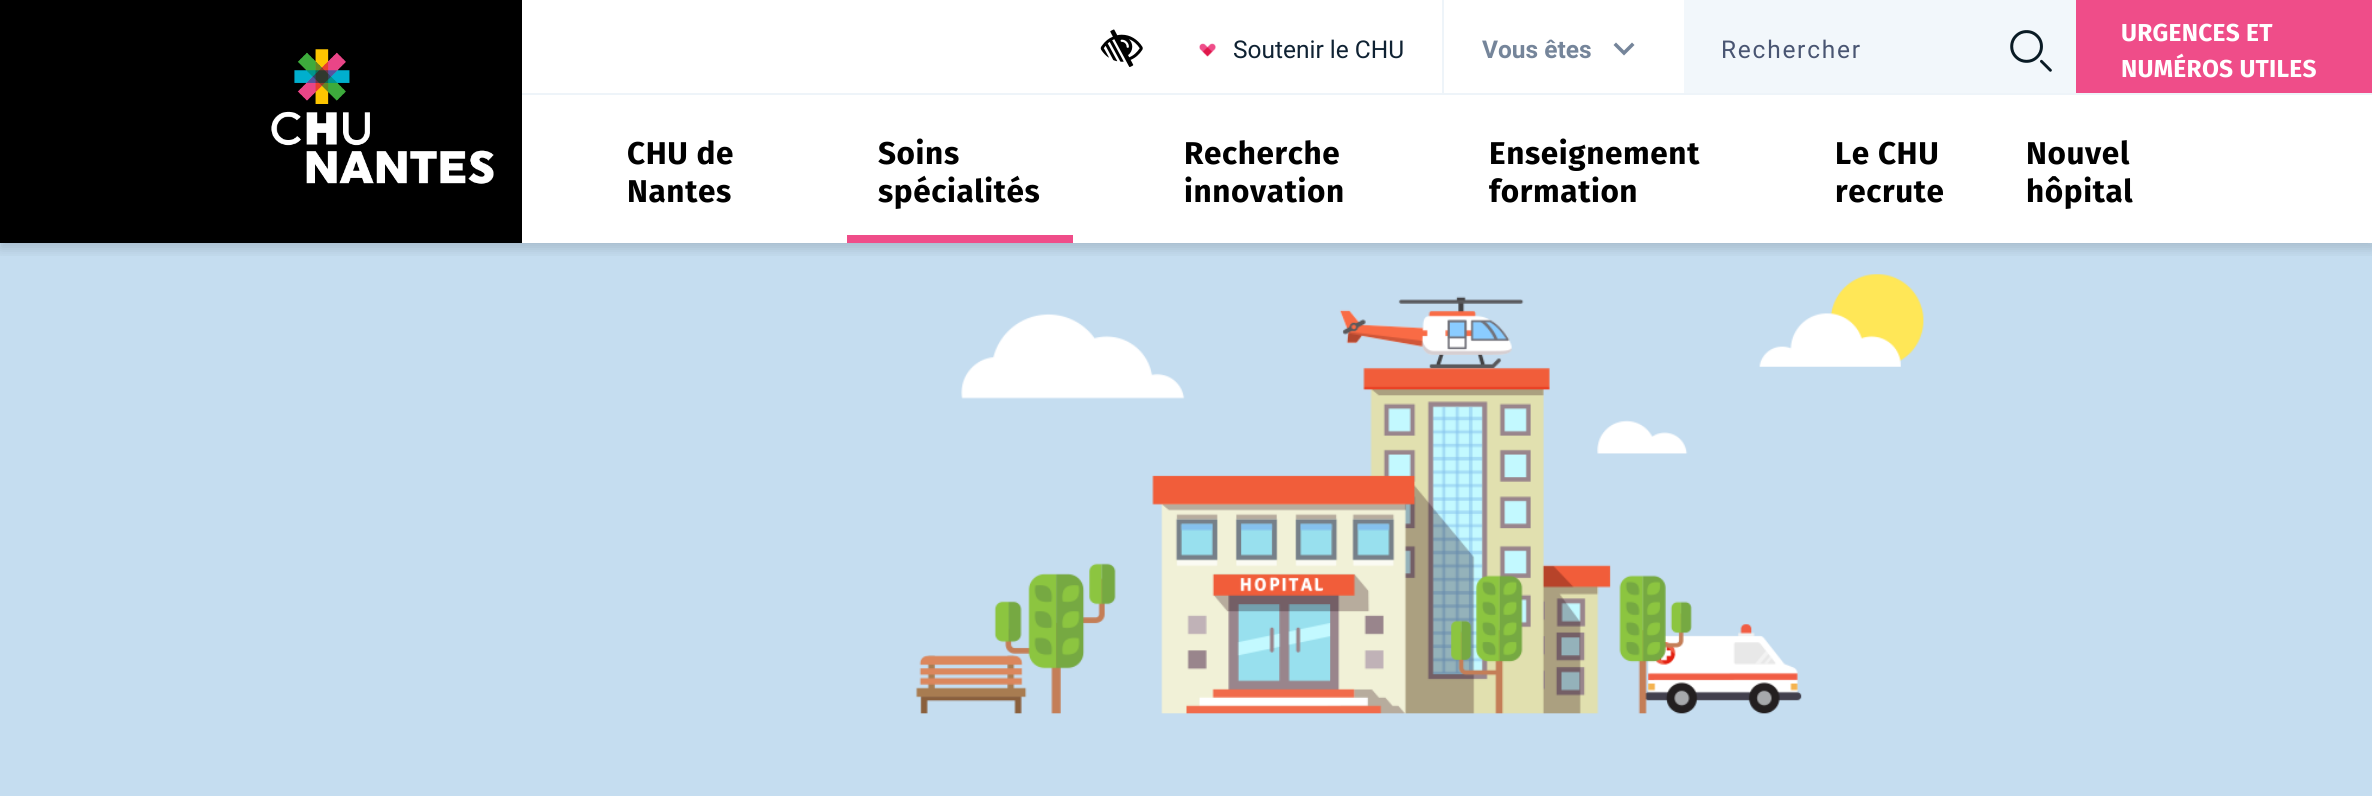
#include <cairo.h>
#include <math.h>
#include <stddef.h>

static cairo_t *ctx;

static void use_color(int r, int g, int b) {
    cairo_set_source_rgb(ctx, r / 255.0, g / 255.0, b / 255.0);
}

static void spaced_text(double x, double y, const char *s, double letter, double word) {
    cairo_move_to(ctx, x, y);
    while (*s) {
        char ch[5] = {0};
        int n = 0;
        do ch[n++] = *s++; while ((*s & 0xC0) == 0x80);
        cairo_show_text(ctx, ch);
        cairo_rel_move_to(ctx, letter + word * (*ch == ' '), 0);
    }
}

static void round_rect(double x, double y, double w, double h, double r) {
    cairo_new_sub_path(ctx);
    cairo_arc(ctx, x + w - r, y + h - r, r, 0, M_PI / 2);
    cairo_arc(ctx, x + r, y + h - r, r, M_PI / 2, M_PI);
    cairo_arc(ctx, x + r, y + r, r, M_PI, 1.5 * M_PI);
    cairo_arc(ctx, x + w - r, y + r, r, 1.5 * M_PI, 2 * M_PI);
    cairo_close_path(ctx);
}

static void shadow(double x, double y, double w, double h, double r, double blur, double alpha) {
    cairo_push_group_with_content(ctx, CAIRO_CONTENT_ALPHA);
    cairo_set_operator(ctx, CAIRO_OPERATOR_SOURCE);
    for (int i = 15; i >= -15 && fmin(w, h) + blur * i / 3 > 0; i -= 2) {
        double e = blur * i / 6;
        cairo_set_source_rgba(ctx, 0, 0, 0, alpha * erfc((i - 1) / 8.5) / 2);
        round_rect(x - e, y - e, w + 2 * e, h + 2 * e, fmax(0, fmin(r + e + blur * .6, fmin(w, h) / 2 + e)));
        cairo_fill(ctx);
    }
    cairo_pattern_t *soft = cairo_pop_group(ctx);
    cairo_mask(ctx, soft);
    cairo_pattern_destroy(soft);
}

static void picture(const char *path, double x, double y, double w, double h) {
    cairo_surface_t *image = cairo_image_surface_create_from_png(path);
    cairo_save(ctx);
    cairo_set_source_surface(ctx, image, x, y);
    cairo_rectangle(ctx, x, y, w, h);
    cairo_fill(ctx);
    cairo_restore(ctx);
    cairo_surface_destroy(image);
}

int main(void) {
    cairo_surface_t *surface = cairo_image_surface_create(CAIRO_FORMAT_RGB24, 2372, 796);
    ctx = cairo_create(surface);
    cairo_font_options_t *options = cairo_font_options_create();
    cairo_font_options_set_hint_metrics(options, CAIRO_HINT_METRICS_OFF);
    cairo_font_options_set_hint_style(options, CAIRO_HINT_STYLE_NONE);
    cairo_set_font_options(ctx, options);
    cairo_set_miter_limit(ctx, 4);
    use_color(255, 255, 255);
    cairo_paint(ctx);
    use_color(0, 0, 0);
    cairo_rectangle(ctx, 0, 0, 522, 243);
    cairo_fill(ctx);
    picture("img5.png", 0, 243, 2372, 553);
    cairo_save(ctx);
    cairo_rectangle(ctx, 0, 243, 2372, 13);
    cairo_clip(ctx);
    use_color(0, 0, 0);
    shadow(0, 5, 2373, 244, 0, 6, 0.15);
    cairo_restore(ctx);
    picture("img1.png", 271, 49, 223, 135);
    use_color(238, 244, 249);
    cairo_rectangle(ctx, 522, 93, 1850, 2);
    cairo_fill(ctx);
    picture("img2.png", 1100, 29, 43, 38);
    picture("img3.png", 1199, 43, 17, 14);
    cairo_select_font_face(ctx, "Roboto", CAIRO_FONT_SLANT_NORMAL, CAIRO_FONT_WEIGHT_NORMAL);
    cairo_set_font_size(ctx, 24.5);
    use_color(15, 34, 51);
    cairo_move_to(ctx, 1233, 58);
    cairo_show_text(ctx, "Soutenir le CHU");
    use_color(238, 244, 249);
    cairo_rectangle(ctx, 1442, 0, 2, 93);
    cairo_fill(ctx);
    cairo_select_font_face(ctx, "Roboto", CAIRO_FONT_SLANT_NORMAL, CAIRO_FONT_WEIGHT_BOLD);
    use_color(117, 133, 154);
    cairo_move_to(ctx, 1482, 58);
    cairo_show_text(ctx, "Vous êtes");
    cairo_new_path(ctx);
    cairo_move_to(ctx, 1616, 42.5);
    cairo_line_to(ctx, 1624, 50.5);
    cairo_line_to(ctx, 1632, 42.5);
    cairo_line_to(ctx, 1634.5, 45);
    cairo_line_to(ctx, 1624, 55.5);
    cairo_line_to(ctx, 1613.5, 45);
    cairo_close_path(ctx);
    cairo_fill(ctx);
    use_color(242, 247, 251);
    cairo_rectangle(ctx, 1684, 0, 392, 93);
    cairo_fill(ctx);
    cairo_select_font_face(ctx, "Roboto", CAIRO_FONT_SLANT_NORMAL, CAIRO_FONT_WEIGHT_NORMAL);
    use_color(73, 85, 114);
    spaced_text(1721, 58, "Rechercher", 1.75, 0);
    picture("img4.png", 2010, 30, 42, 42);
    use_color(239, 77, 137);
    cairo_rectangle(ctx, 2076, 0, 296, 93);
    cairo_fill(ctx);
    cairo_select_font_face(ctx, "Fira Sans", CAIRO_FONT_SLANT_NORMAL, CAIRO_FONT_WEIGHT_BOLD);
    use_color(255, 255, 255);
    spaced_text(2121, 41, "URGENCES ET", 0.25, 0);
    spaced_text(2121, 77, "NUMÉROS UTILES", 0.25, 0);
    cairo_set_font_size(ctx, 31.5);
    use_color(0, 0, 0);
    spaced_text(627, 164, "CHU de", 0.6, 0);
    spaced_text(627, 202, "Nantes", 0.6, 0);
    spaced_text(878, 164, "Soins", 0.6, 0);
    spaced_text(878, 202, "spécialités", 0.6, 0);
    use_color(239, 77, 137);
    cairo_rectangle(ctx, 847, 235, 226, 8);
    cairo_fill(ctx);
    use_color(0, 0, 0);
    spaced_text(1184, 164, "Recherche", 0.6, 0);
    spaced_text(1184, 202, "innovation", 0.6, 0);
    spaced_text(1489, 164, "Enseignement", 0.6, 0);
    spaced_text(1489, 202, "formation", 0.6, 0);
    spaced_text(1835, 164, "Le CHU", 0.6, 0);
    spaced_text(1835, 202, "recrute", 0.6, 0);
    spaced_text(2026, 164, "Nouvel", 0.6, 0);
    spaced_text(2026, 202, "hôpital", 0.6, 0);
    cairo_surface_write_to_png(surface, "result.png");
    cairo_font_options_destroy(options);
    cairo_destroy(ctx);
    cairo_surface_destroy(surface);
    return 0;
}
